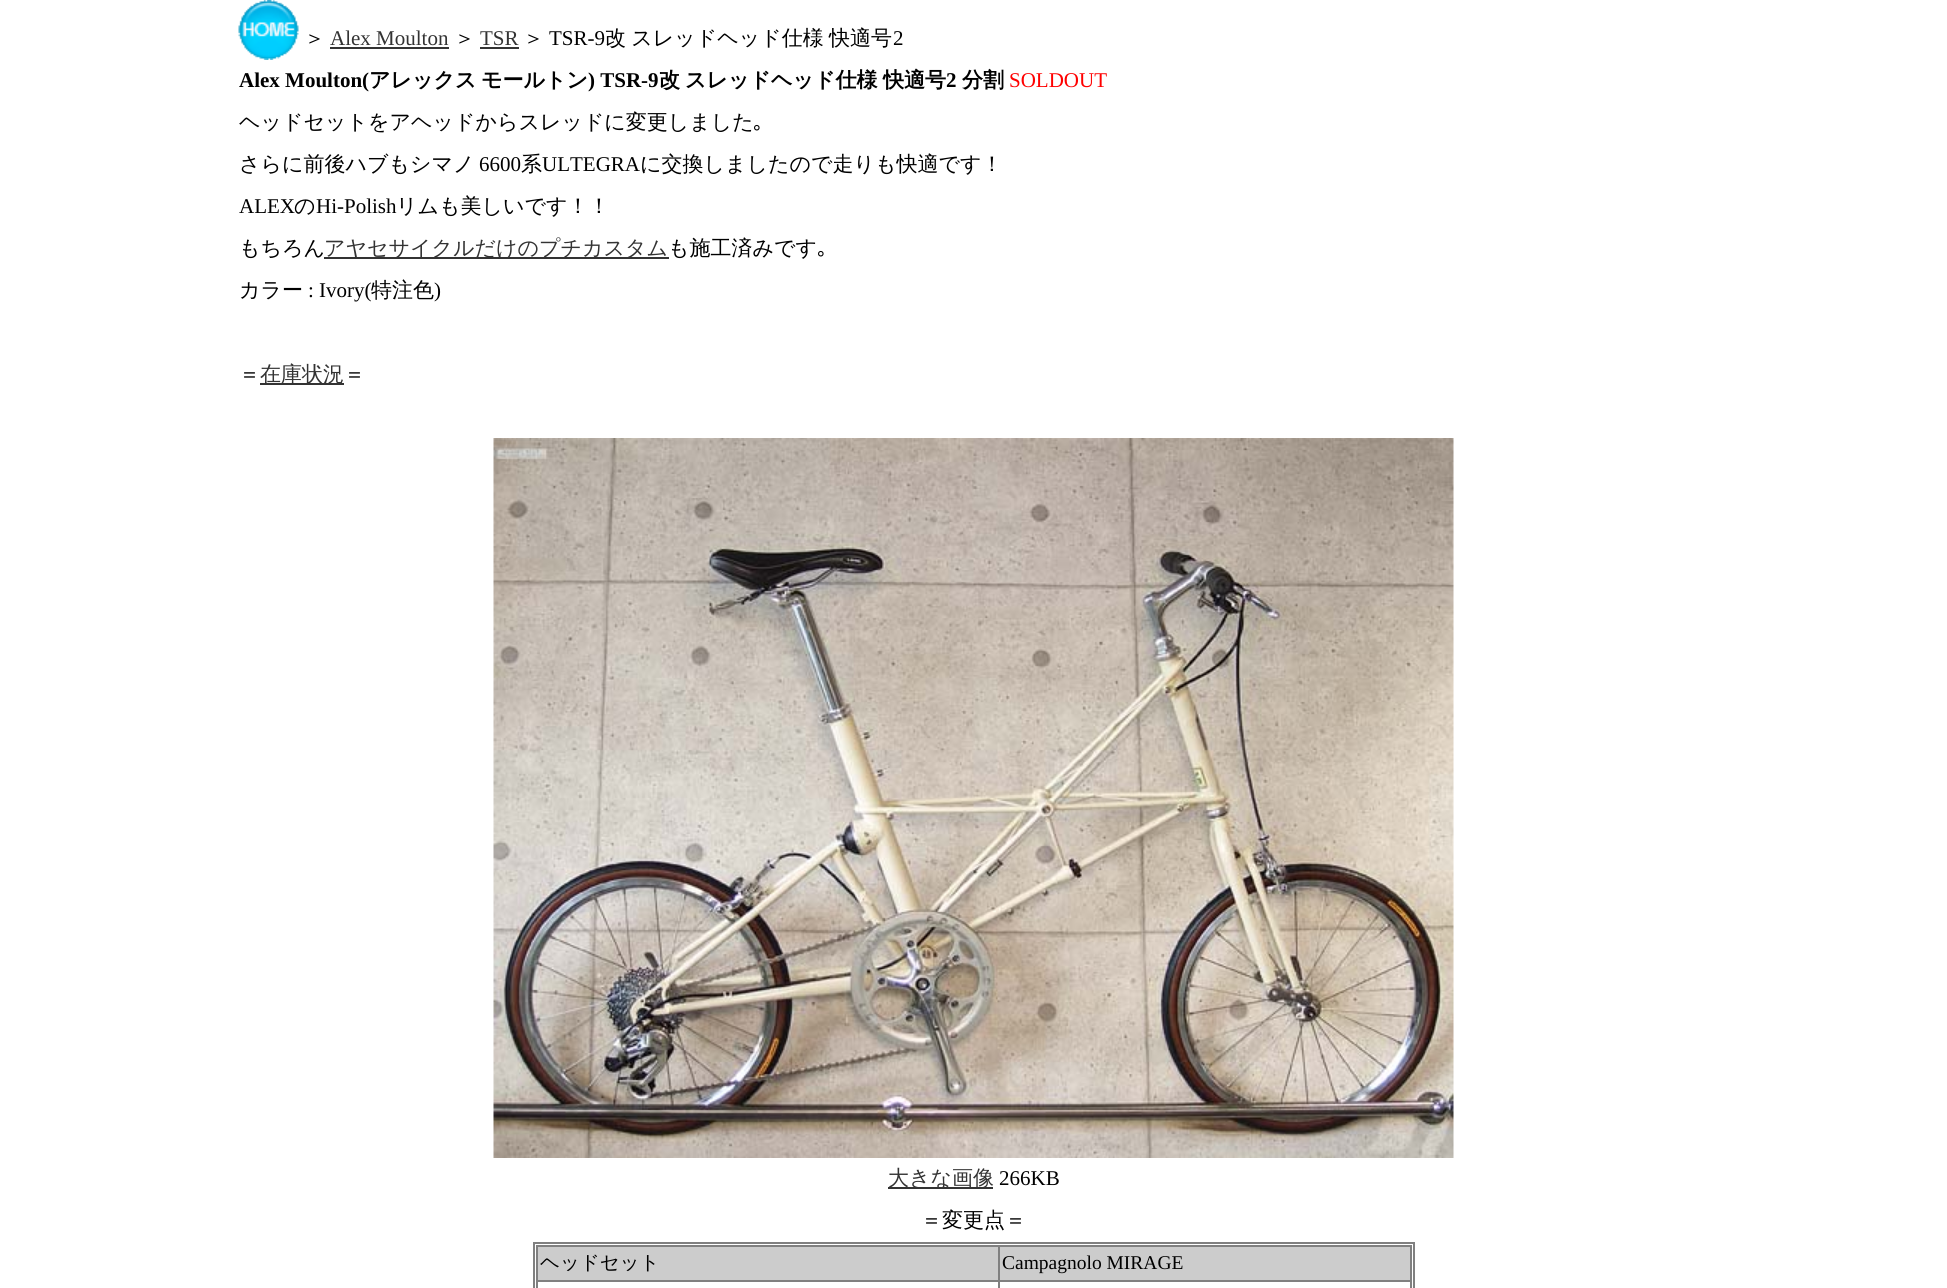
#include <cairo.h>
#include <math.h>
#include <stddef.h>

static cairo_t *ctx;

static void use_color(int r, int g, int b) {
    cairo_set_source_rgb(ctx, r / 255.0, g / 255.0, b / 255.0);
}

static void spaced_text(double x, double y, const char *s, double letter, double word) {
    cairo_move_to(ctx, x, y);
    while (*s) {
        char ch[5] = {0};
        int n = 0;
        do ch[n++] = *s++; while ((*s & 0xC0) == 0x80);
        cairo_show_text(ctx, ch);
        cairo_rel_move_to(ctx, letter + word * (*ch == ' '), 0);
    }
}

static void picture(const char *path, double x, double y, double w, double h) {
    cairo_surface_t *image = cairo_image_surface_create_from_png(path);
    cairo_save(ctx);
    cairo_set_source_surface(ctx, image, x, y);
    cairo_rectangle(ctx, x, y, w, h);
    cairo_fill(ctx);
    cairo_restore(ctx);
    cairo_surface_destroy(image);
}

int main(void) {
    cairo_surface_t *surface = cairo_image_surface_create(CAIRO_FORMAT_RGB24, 1947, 1288);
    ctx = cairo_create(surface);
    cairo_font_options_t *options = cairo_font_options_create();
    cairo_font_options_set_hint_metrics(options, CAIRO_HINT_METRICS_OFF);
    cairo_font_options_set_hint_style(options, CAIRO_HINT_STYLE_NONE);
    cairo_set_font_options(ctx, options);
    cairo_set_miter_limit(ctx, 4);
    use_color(255, 255, 255);
    cairo_paint(ctx);
    picture("img1.png", 238, 0, 61, 60);
    cairo_select_font_face(ctx, "WenQuanYi Zen Hei Medium", CAIRO_FONT_SLANT_NORMAL, CAIRO_FONT_WEIGHT_NORMAL);
    cairo_set_font_size(ctx, 21);
    use_color(0, 0, 0);
    cairo_move_to(ctx, 304, 45);
    cairo_show_text(ctx, "＞");
    cairo_select_font_face(ctx, "Liberation Serif", CAIRO_FONT_SLANT_NORMAL, CAIRO_FONT_WEIGHT_NORMAL);
    use_color(51, 51, 51);
    cairo_move_to(ctx, 330, 45);
    cairo_show_text(ctx, "Alex Moulton");
    cairo_rectangle(ctx, 330, 47, 119, 2);
    cairo_fill(ctx);
    cairo_select_font_face(ctx, "WenQuanYi Zen Hei Medium", CAIRO_FONT_SLANT_NORMAL, CAIRO_FONT_WEIGHT_NORMAL);
    use_color(0, 0, 0);
    cairo_move_to(ctx, 454, 45);
    cairo_show_text(ctx, "＞");
    cairo_select_font_face(ctx, "Liberation Serif", CAIRO_FONT_SLANT_NORMAL, CAIRO_FONT_WEIGHT_NORMAL);
    use_color(51, 51, 51);
    cairo_move_to(ctx, 480, 45);
    cairo_show_text(ctx, "TSR");
    cairo_rectangle(ctx, 480, 47, 39, 2);
    cairo_fill(ctx);
    cairo_select_font_face(ctx, "WenQuanYi Zen Hei Medium", CAIRO_FONT_SLANT_NORMAL, CAIRO_FONT_WEIGHT_NORMAL);
    use_color(0, 0, 0);
    cairo_move_to(ctx, 523, 45);
    cairo_show_text(ctx, "＞");
    cairo_select_font_face(ctx, "Liberation Serif", CAIRO_FONT_SLANT_NORMAL, CAIRO_FONT_WEIGHT_NORMAL);
    cairo_move_to(ctx, 549, 45);
    cairo_show_text(ctx, "TSR-9");
    cairo_select_font_face(ctx, "WenQuanYi Zen Hei Medium", CAIRO_FONT_SLANT_NORMAL, CAIRO_FONT_WEIGHT_NORMAL);
    spaced_text(605, 45, "改 スレッドヘッド仕様 快適号", 0, -1);
    cairo_select_font_face(ctx, "Liberation Serif", CAIRO_FONT_SLANT_NORMAL, CAIRO_FONT_WEIGHT_NORMAL);
    cairo_move_to(ctx, 893, 45);
    cairo_show_text(ctx, "2");
    cairo_select_font_face(ctx, "Liberation Serif", CAIRO_FONT_SLANT_NORMAL, CAIRO_FONT_WEIGHT_BOLD);
    cairo_move_to(ctx, 239, 87);
    cairo_show_text(ctx, "Alex Moulton(");
    cairo_select_font_face(ctx, "WenQuanYi Zen Hei", CAIRO_FONT_SLANT_NORMAL, CAIRO_FONT_WEIGHT_BOLD);
    cairo_move_to(ctx, 369, 87);
    cairo_show_text(ctx, "アレックス");
    cairo_move_to(ctx, 481, 87);
    cairo_show_text(ctx, "モールトン");
    cairo_select_font_face(ctx, "Liberation Serif", CAIRO_FONT_SLANT_NORMAL, CAIRO_FONT_WEIGHT_BOLD);
    cairo_move_to(ctx, 588, 87);
    cairo_show_text(ctx, ") TSR-9");
    cairo_select_font_face(ctx, "WenQuanYi Zen Hei", CAIRO_FONT_SLANT_NORMAL, CAIRO_FONT_WEIGHT_BOLD);
    cairo_move_to(ctx, 659, 87);
    cairo_show_text(ctx, "改");
    cairo_move_to(ctx, 685, 87);
    cairo_show_text(ctx, "スレッドヘッド仕様");
    cairo_move_to(ctx, 883, 87);
    cairo_show_text(ctx, "快適号");
    cairo_select_font_face(ctx, "Liberation Serif", CAIRO_FONT_SLANT_NORMAL, CAIRO_FONT_WEIGHT_BOLD);
    cairo_move_to(ctx, 946, 87);
    cairo_show_text(ctx, "2");
    cairo_select_font_face(ctx, "WenQuanYi Zen Hei", CAIRO_FONT_SLANT_NORMAL, CAIRO_FONT_WEIGHT_BOLD);
    cairo_move_to(ctx, 962, 87);
    cairo_show_text(ctx, "分割");
    cairo_select_font_face(ctx, "Liberation Serif", CAIRO_FONT_SLANT_NORMAL, CAIRO_FONT_WEIGHT_NORMAL);
    use_color(255, 0, 0);
    cairo_move_to(ctx, 1009, 87);
    cairo_show_text(ctx, "SOLDOUT");
    cairo_select_font_face(ctx, "WenQuanYi Zen Hei Medium", CAIRO_FONT_SLANT_NORMAL, CAIRO_FONT_WEIGHT_NORMAL);
    use_color(0, 0, 0);
    cairo_move_to(ctx, 239, 129);
    cairo_show_text(ctx, "ヘッドセットをアヘッドからスレッドに変更しました");
    cairo_select_font_face(ctx, "IPAGothic", CAIRO_FONT_SLANT_NORMAL, CAIRO_FONT_WEIGHT_NORMAL);
    cairo_move_to(ctx, 753, 129);
    cairo_show_text(ctx, "｡");
    cairo_select_font_face(ctx, "WenQuanYi Zen Hei Medium", CAIRO_FONT_SLANT_NORMAL, CAIRO_FONT_WEIGHT_NORMAL);
    cairo_move_to(ctx, 239, 171);
    cairo_show_text(ctx, "さらに前後ハブもシマノ");
    cairo_select_font_face(ctx, "Liberation Serif", CAIRO_FONT_SLANT_NORMAL, CAIRO_FONT_WEIGHT_NORMAL);
    cairo_move_to(ctx, 479, 171);
    cairo_show_text(ctx, "6600");
    cairo_select_font_face(ctx, "WenQuanYi Zen Hei Medium", CAIRO_FONT_SLANT_NORMAL, CAIRO_FONT_WEIGHT_NORMAL);
    cairo_move_to(ctx, 521, 171);
    cairo_show_text(ctx, "系");
    cairo_select_font_face(ctx, "Liberation Serif", CAIRO_FONT_SLANT_NORMAL, CAIRO_FONT_WEIGHT_NORMAL);
    cairo_move_to(ctx, 542, 171);
    cairo_show_text(ctx, "ULTEGRA");
    cairo_select_font_face(ctx, "WenQuanYi Zen Hei Medium", CAIRO_FONT_SLANT_NORMAL, CAIRO_FONT_WEIGHT_NORMAL);
    cairo_move_to(ctx, 640, 171);
    cairo_show_text(ctx, "に交換しましたので走りも快適です！");
    cairo_select_font_face(ctx, "Liberation Serif", CAIRO_FONT_SLANT_NORMAL, CAIRO_FONT_WEIGHT_NORMAL);
    cairo_move_to(ctx, 239, 213);
    cairo_show_text(ctx, "ALEX");
    cairo_select_font_face(ctx, "WenQuanYi Zen Hei Medium", CAIRO_FONT_SLANT_NORMAL, CAIRO_FONT_WEIGHT_NORMAL);
    cairo_move_to(ctx, 294, 213);
    cairo_show_text(ctx, "の");
    cairo_select_font_face(ctx, "Liberation Serif", CAIRO_FONT_SLANT_NORMAL, CAIRO_FONT_WEIGHT_NORMAL);
    cairo_move_to(ctx, 316, 213);
    cairo_show_text(ctx, "Hi-Polish");
    cairo_select_font_face(ctx, "WenQuanYi Zen Hei Medium", CAIRO_FONT_SLANT_NORMAL, CAIRO_FONT_WEIGHT_NORMAL);
    cairo_move_to(ctx, 396, 213);
    cairo_show_text(ctx, "リムも美しいです！！");
    cairo_move_to(ctx, 239, 255);
    cairo_show_text(ctx, "もちろん");
    use_color(51, 51, 51);
    cairo_rectangle(ctx, 324, 257, 345, 2);
    cairo_fill(ctx);
    cairo_move_to(ctx, 324, 255);
    cairo_show_text(ctx, "アヤセサイクルだけのプチカスタム");
    use_color(0, 0, 0);
    cairo_move_to(ctx, 668, 255);
    cairo_show_text(ctx, "も施工済みです");
    cairo_select_font_face(ctx, "IPAGothic", CAIRO_FONT_SLANT_NORMAL, CAIRO_FONT_WEIGHT_NORMAL);
    cairo_move_to(ctx, 817, 255);
    cairo_show_text(ctx, "｡");
    cairo_select_font_face(ctx, "WenQuanYi Zen Hei Medium", CAIRO_FONT_SLANT_NORMAL, CAIRO_FONT_WEIGHT_NORMAL);
    cairo_move_to(ctx, 239, 297);
    cairo_show_text(ctx, "カラー");
    cairo_select_font_face(ctx, "Liberation Serif", CAIRO_FONT_SLANT_NORMAL, CAIRO_FONT_WEIGHT_NORMAL);
    cairo_move_to(ctx, 308, 297);
    cairo_show_text(ctx, ": Ivory(");
    cairo_select_font_face(ctx, "WenQuanYi Zen Hei Medium", CAIRO_FONT_SLANT_NORMAL, CAIRO_FONT_WEIGHT_NORMAL);
    cairo_move_to(ctx, 371, 297);
    cairo_show_text(ctx, "特注色");
    cairo_select_font_face(ctx, "Liberation Serif", CAIRO_FONT_SLANT_NORMAL, CAIRO_FONT_WEIGHT_NORMAL);
    cairo_move_to(ctx, 434, 297);
    cairo_show_text(ctx, ")");
    cairo_select_font_face(ctx, "WenQuanYi Zen Hei Medium", CAIRO_FONT_SLANT_NORMAL, CAIRO_FONT_WEIGHT_NORMAL);
    cairo_move_to(ctx, 239, 381);
    cairo_show_text(ctx, "＝");
    use_color(51, 51, 51);
    cairo_rectangle(ctx, 260, 383, 84, 2);
    cairo_fill(ctx);
    cairo_move_to(ctx, 260, 381);
    cairo_show_text(ctx, "在庫状況");
    use_color(0, 0, 0);
    cairo_move_to(ctx, 344, 381);
    cairo_show_text(ctx, "＝");
    picture("img2.png", 493, 438, 961, 720);
    use_color(51, 51, 51);
    cairo_rectangle(ctx, 888, 1187, 105, 2);
    cairo_fill(ctx);
    cairo_move_to(ctx, 888, 1185);
    cairo_show_text(ctx, "大きな画像");
    cairo_select_font_face(ctx, "Liberation Serif", CAIRO_FONT_SLANT_NORMAL, CAIRO_FONT_WEIGHT_NORMAL);
    use_color(0, 0, 0);
    cairo_move_to(ctx, 999, 1185);
    cairo_show_text(ctx, "266KB");
    cairo_select_font_face(ctx, "WenQuanYi Zen Hei Medium", CAIRO_FONT_SLANT_NORMAL, CAIRO_FONT_WEIGHT_NORMAL);
    cairo_move_to(ctx, 921, 1227);
    cairo_show_text(ctx, "＝変更点＝");
    use_color(128, 128, 128);
    cairo_rectangle(ctx, 533, 1242, 882, 2);
    cairo_fill(ctx);
    cairo_rectangle(ctx, 1413, 1242, 2, 46);
    cairo_fill(ctx);
    cairo_rectangle(ctx, 533, 1242, 2, 46);
    cairo_fill(ctx);
    cairo_rectangle(ctx, 536, 1245, 876, 2);
    cairo_fill(ctx);
    cairo_rectangle(ctx, 1410, 1245, 2, 43);
    cairo_fill(ctx);
    cairo_rectangle(ctx, 536, 1245, 2, 43);
    cairo_fill(ctx);
    use_color(204, 204, 204);
    cairo_rectangle(ctx, 538, 1247, 872, 33);
    cairo_fill(ctx);
    cairo_set_font_size(ctx, 19.5);
    use_color(0, 0, 0);
    cairo_move_to(ctx, 540, 1269);
    cairo_show_text(ctx, "ヘッドセット");
    use_color(128, 128, 128);
    cairo_rectangle(ctx, 998, 1280, 414, 2);
    cairo_fill(ctx);
    cairo_rectangle(ctx, 998, 1280, 2, 8);
    cairo_fill(ctx);
    cairo_rectangle(ctx, 536, 1280, 463, 2);
    cairo_fill(ctx);
    cairo_rectangle(ctx, 998, 1245, 2, 36);
    cairo_fill(ctx);
    cairo_select_font_face(ctx, "Liberation Serif", CAIRO_FONT_SLANT_NORMAL, CAIRO_FONT_WEIGHT_NORMAL);
    use_color(0, 0, 0);
    cairo_move_to(ctx, 1002, 1269);
    cairo_show_text(ctx, "Campagnolo MIRAGE");
    cairo_surface_write_to_png(surface, "result.png");
    cairo_font_options_destroy(options);
    cairo_destroy(ctx);
    cairo_surface_destroy(surface);
    return 0;
}
